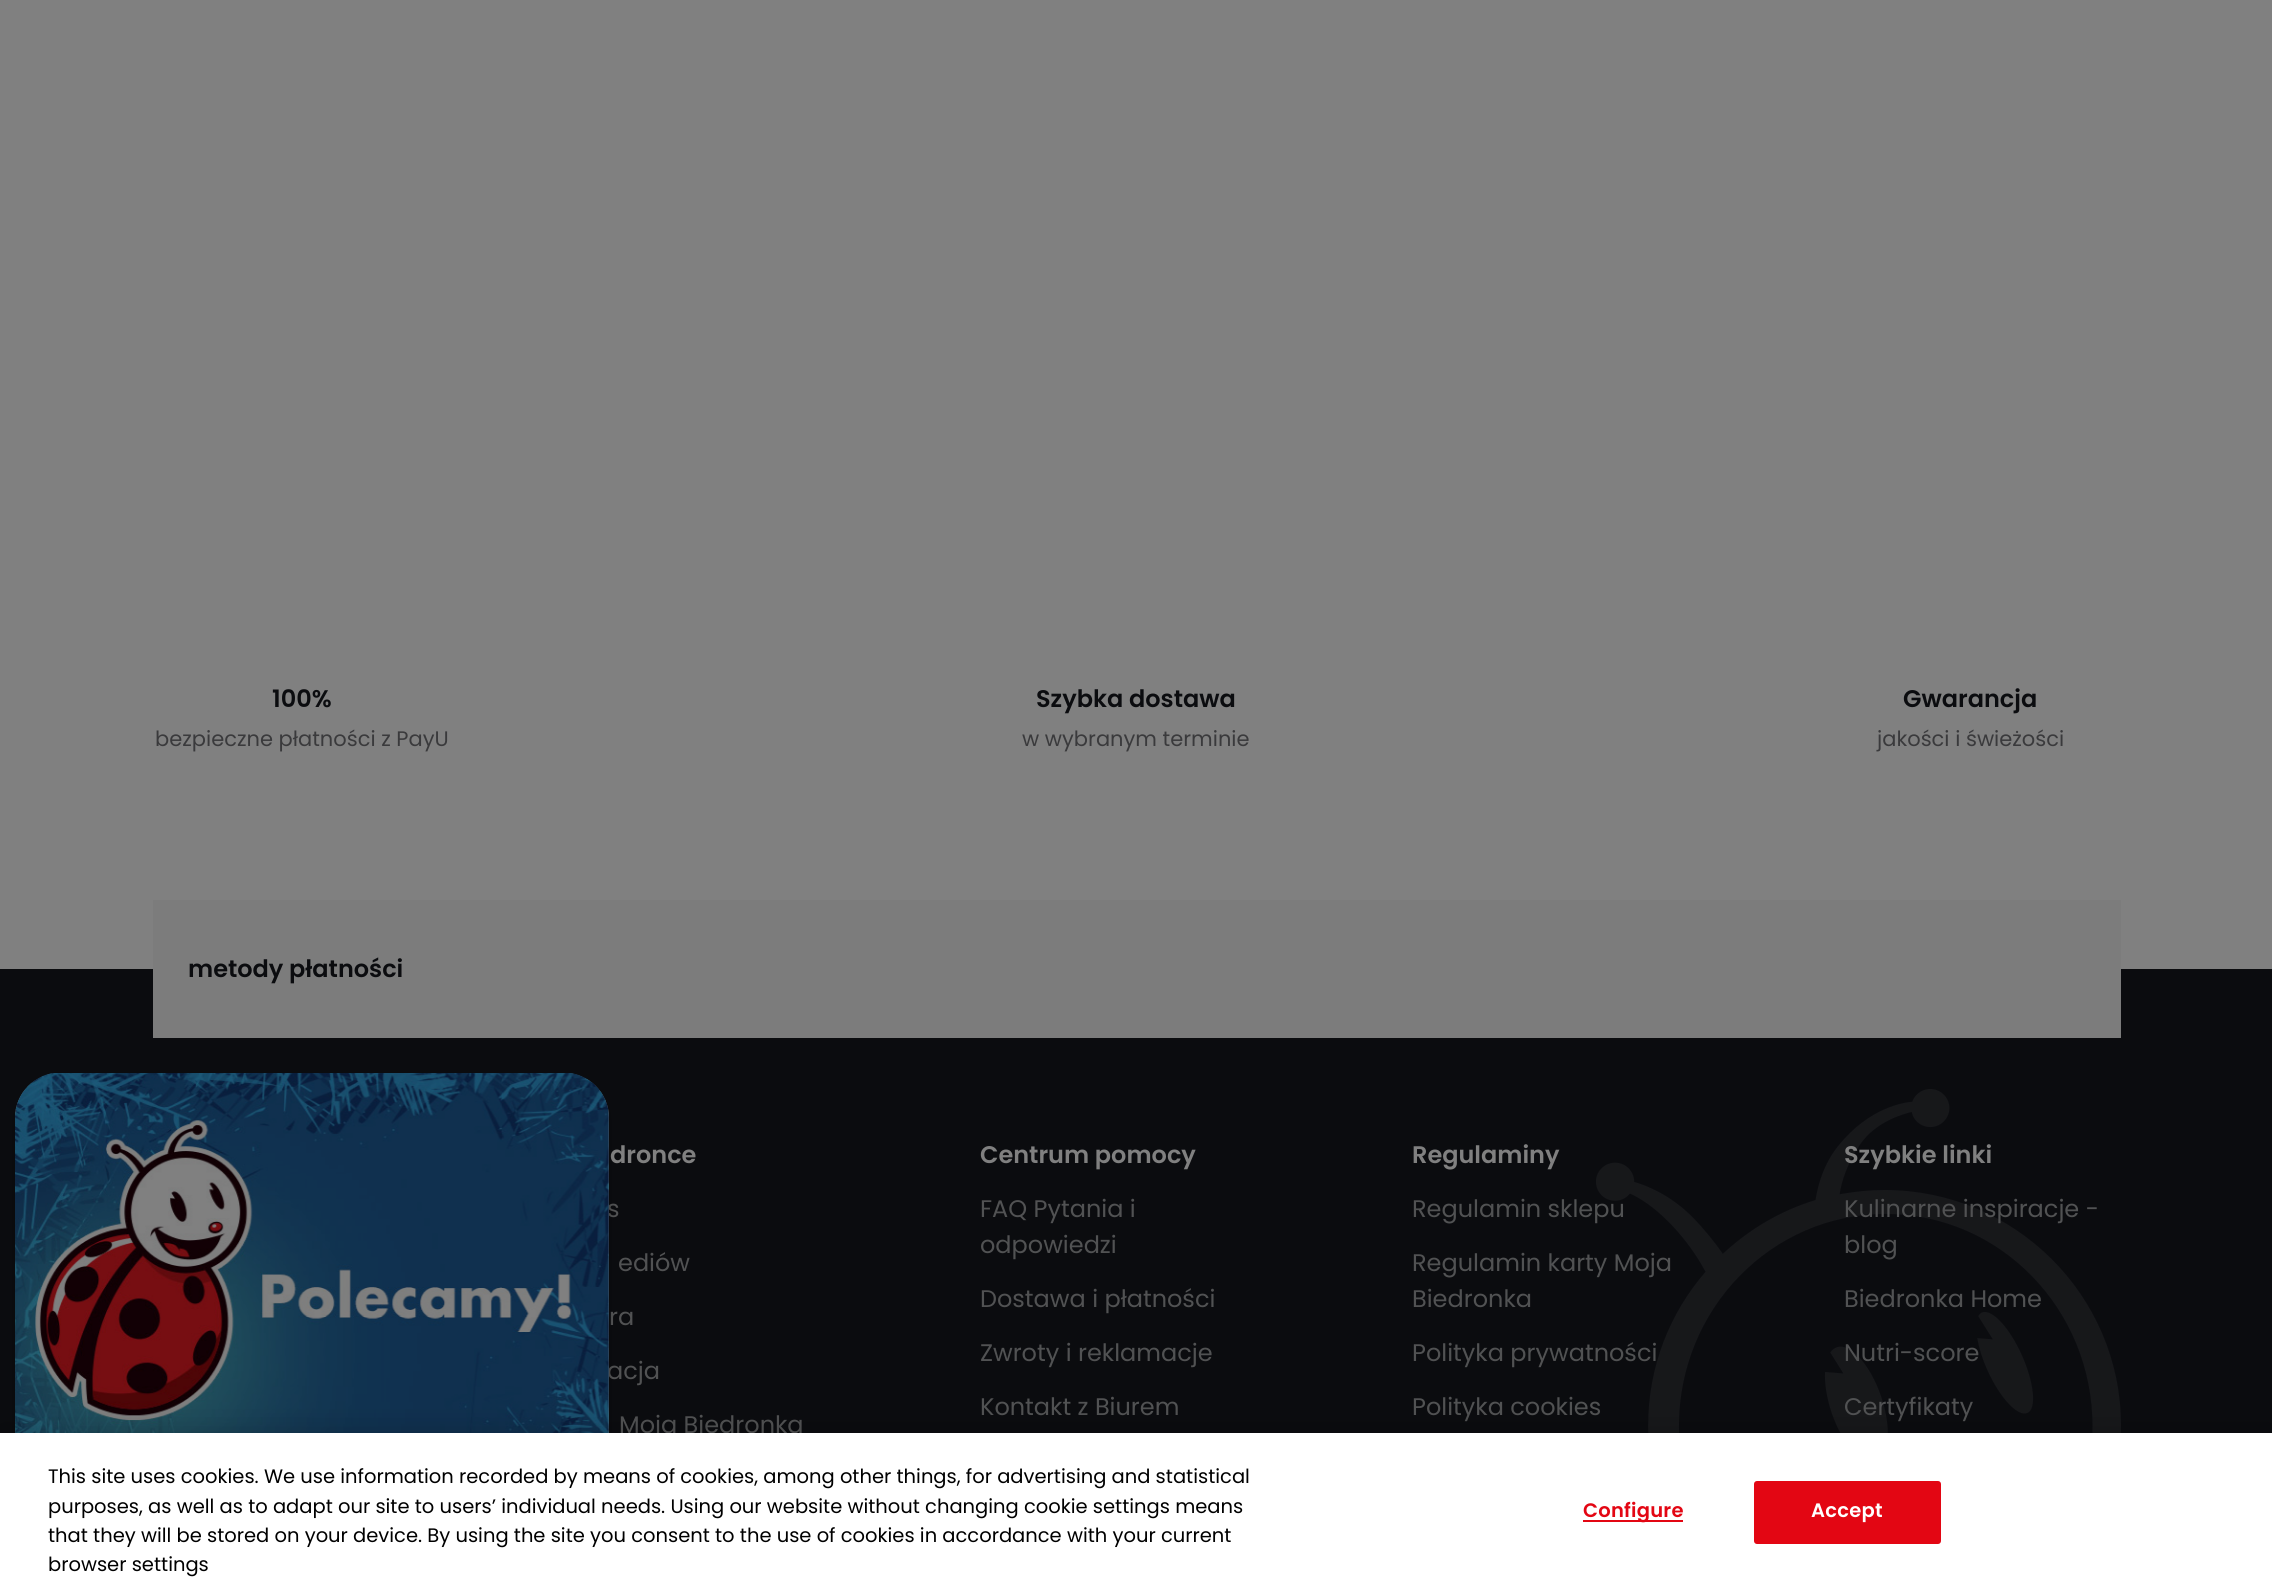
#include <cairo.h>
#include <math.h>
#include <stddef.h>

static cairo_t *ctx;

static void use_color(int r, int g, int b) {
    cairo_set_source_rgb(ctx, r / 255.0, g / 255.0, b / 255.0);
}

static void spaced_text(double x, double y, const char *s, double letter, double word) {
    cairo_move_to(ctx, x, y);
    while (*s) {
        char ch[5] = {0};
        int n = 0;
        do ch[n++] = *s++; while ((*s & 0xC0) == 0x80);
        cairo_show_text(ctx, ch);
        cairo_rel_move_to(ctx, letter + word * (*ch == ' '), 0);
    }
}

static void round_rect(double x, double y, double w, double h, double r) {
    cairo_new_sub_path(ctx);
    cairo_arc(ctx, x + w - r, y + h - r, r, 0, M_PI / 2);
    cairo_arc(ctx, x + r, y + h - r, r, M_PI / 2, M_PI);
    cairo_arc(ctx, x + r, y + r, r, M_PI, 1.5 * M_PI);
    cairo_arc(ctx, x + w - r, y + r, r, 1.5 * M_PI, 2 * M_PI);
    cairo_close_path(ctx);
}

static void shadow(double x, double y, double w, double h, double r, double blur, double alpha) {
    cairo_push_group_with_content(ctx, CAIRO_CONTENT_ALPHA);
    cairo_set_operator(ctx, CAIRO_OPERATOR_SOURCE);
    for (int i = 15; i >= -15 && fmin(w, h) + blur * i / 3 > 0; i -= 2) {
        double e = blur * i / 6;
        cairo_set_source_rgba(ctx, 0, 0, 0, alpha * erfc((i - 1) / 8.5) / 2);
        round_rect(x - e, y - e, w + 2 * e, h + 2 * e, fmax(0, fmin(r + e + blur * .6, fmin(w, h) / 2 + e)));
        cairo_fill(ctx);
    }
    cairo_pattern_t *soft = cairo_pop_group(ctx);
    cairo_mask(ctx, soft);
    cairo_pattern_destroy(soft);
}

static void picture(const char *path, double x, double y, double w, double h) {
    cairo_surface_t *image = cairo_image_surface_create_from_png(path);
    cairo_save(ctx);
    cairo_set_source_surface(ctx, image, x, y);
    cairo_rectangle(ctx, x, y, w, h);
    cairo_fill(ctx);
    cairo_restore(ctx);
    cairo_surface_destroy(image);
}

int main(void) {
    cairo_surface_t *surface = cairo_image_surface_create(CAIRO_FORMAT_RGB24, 2272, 1594);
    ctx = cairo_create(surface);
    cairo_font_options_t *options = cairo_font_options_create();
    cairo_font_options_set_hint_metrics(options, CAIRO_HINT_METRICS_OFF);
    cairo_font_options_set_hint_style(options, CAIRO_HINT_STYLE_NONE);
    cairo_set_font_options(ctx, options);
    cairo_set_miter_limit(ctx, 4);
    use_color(128, 128, 128);
    cairo_paint(ctx);
    cairo_select_font_face(ctx, "Poppins SemiBold", CAIRO_FONT_SLANT_NORMAL, CAIRO_FONT_WEIGHT_NORMAL);
    cairo_set_font_size(ctx, 24);
    use_color(11, 12, 15);
    cairo_move_to(ctx, 272, 707);
    cairo_show_text(ctx, "100%");
    cairo_select_font_face(ctx, "Poppins", CAIRO_FONT_SLANT_NORMAL, CAIRO_FONT_WEIGHT_NORMAL);
    cairo_set_font_size(ctx, 21);
    use_color(58, 58, 60);
    cairo_move_to(ctx, 155, 746);
    cairo_show_text(ctx, "bezpieczne płatności z PayU");
    cairo_select_font_face(ctx, "Poppins SemiBold", CAIRO_FONT_SLANT_NORMAL, CAIRO_FONT_WEIGHT_NORMAL);
    cairo_set_font_size(ctx, 24);
    use_color(11, 12, 15);
    cairo_move_to(ctx, 1036, 707);
    cairo_show_text(ctx, "Szybka dostawa");
    cairo_select_font_face(ctx, "Poppins", CAIRO_FONT_SLANT_NORMAL, CAIRO_FONT_WEIGHT_NORMAL);
    cairo_set_font_size(ctx, 21);
    use_color(58, 58, 60);
    cairo_move_to(ctx, 1022, 746);
    cairo_show_text(ctx, "w wybranym terminie");
    cairo_select_font_face(ctx, "Poppins SemiBold", CAIRO_FONT_SLANT_NORMAL, CAIRO_FONT_WEIGHT_NORMAL);
    cairo_set_font_size(ctx, 24);
    use_color(11, 12, 15);
    cairo_move_to(ctx, 1903, 707);
    cairo_show_text(ctx, "Gwarancja");
    cairo_select_font_face(ctx, "Poppins", CAIRO_FONT_SLANT_NORMAL, CAIRO_FONT_WEIGHT_NORMAL);
    cairo_set_font_size(ctx, 21);
    use_color(58, 58, 60);
    cairo_move_to(ctx, 1877, 746);
    cairo_show_text(ctx, "jakości i świeżości");
    use_color(11, 12, 15);
    cairo_rectangle(ctx, 0, 969, 2272, 464);
    cairo_fill(ctx);
    use_color(124, 124, 124);
    cairo_rectangle(ctx, 153, 900, 1968, 138);
    cairo_fill(ctx);
    cairo_select_font_face(ctx, "Poppins SemiBold", CAIRO_FONT_SLANT_NORMAL, CAIRO_FONT_WEIGHT_NORMAL);
    cairo_set_font_size(ctx, 24);
    use_color(11, 12, 15);
    cairo_move_to(ctx, 188, 977);
    cairo_show_text(ctx, "metody płatności");
    picture("img1.png", 1596, 1089, 525, 344);
    use_color(128, 128, 128);
    cairo_move_to(ctx, 610, 1163);
    cairo_show_text(ctx, "dronce");
    cairo_select_font_face(ctx, "Poppins", CAIRO_FONT_SLANT_NORMAL, CAIRO_FONT_WEIGHT_NORMAL);
    use_color(81, 82, 83);
    cairo_move_to(ctx, 607, 1217);
    cairo_show_text(ctx, "s");
    cairo_move_to(ctx, 618, 1271);
    cairo_show_text(ctx, "ediów");
    cairo_move_to(ctx, 609, 1325);
    cairo_show_text(ctx, "ra");
    cairo_move_to(ctx, 607, 1379);
    cairo_show_text(ctx, "acja");
    cairo_move_to(ctx, 619, 1433);
    cairo_show_text(ctx, "Moja Biedronka");
    cairo_select_font_face(ctx, "Poppins SemiBold", CAIRO_FONT_SLANT_NORMAL, CAIRO_FONT_WEIGHT_NORMAL);
    use_color(128, 128, 128);
    cairo_move_to(ctx, 980, 1163);
    cairo_show_text(ctx, "Centrum pomocy");
    cairo_select_font_face(ctx, "Poppins", CAIRO_FONT_SLANT_NORMAL, CAIRO_FONT_WEIGHT_NORMAL);
    use_color(81, 82, 83);
    cairo_move_to(ctx, 980, 1217);
    cairo_show_text(ctx, "FAQ Pytania i");
    cairo_move_to(ctx, 980, 1253);
    cairo_show_text(ctx, "odpowiedzi");
    cairo_move_to(ctx, 980, 1307);
    cairo_show_text(ctx, "Dostawa i płatności");
    cairo_move_to(ctx, 980, 1361);
    cairo_show_text(ctx, "Zwroty i reklamacje");
    cairo_move_to(ctx, 980, 1415);
    cairo_show_text(ctx, "Kontakt z Biurem");
    cairo_select_font_face(ctx, "Poppins SemiBold", CAIRO_FONT_SLANT_NORMAL, CAIRO_FONT_WEIGHT_NORMAL);
    use_color(128, 128, 128);
    cairo_move_to(ctx, 1412, 1163);
    cairo_show_text(ctx, "Regulaminy");
    cairo_select_font_face(ctx, "Poppins", CAIRO_FONT_SLANT_NORMAL, CAIRO_FONT_WEIGHT_NORMAL);
    use_color(81, 82, 83);
    cairo_move_to(ctx, 1412, 1217);
    cairo_show_text(ctx, "Regulamin sklepu");
    cairo_move_to(ctx, 1412, 1271);
    cairo_show_text(ctx, "Regulamin karty Moja");
    cairo_move_to(ctx, 1412, 1307);
    cairo_show_text(ctx, "Biedronka");
    cairo_move_to(ctx, 1412, 1361);
    cairo_show_text(ctx, "Polityka prywatności");
    cairo_move_to(ctx, 1412, 1415);
    cairo_show_text(ctx, "Polityka cookies");
    cairo_select_font_face(ctx, "Poppins SemiBold", CAIRO_FONT_SLANT_NORMAL, CAIRO_FONT_WEIGHT_NORMAL);
    use_color(128, 128, 128);
    cairo_move_to(ctx, 1844, 1163);
    cairo_show_text(ctx, "Szybkie linki");
    cairo_select_font_face(ctx, "Poppins", CAIRO_FONT_SLANT_NORMAL, CAIRO_FONT_WEIGHT_NORMAL);
    use_color(81, 82, 83);
    cairo_move_to(ctx, 1844, 1217);
    cairo_show_text(ctx, "Kulinarne inspiracje -");
    cairo_move_to(ctx, 1844, 1253);
    cairo_show_text(ctx, "blog");
    cairo_move_to(ctx, 1844, 1307);
    cairo_show_text(ctx, "Biedronka Home");
    cairo_move_to(ctx, 1844, 1361);
    cairo_show_text(ctx, "Nutri-score");
    cairo_move_to(ctx, 1844, 1415);
    cairo_show_text(ctx, "Certyfikaty");
    use_color(0, 0, 0);
    shadow(15, 1077, 594, 507, 45, 3, 0.25);
    use_color(128, 128, 128);
    round_rect(15, 1073, 594, 507, 45);
    cairo_fill(ctx);
    picture("img2.png", 15, 1073, 594, 360);
    use_color(0, 0, 0);
    shadow(0, 1433, 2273, 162, 0, 13.5, 0.2);
    use_color(255, 255, 255);
    cairo_rectangle(ctx, 0, 1433, 2272, 161);
    cairo_fill(ctx);
    cairo_set_font_size(ctx, 19.5);
    use_color(0, 0, 0);
    cairo_move_to(ctx, 48, 1483);
    cairo_show_text(ctx, "This site uses cookies. We use information recorded by means of cookies, among other things, for advertising and statistical");
    cairo_move_to(ctx, 48, 1513);
    cairo_show_text(ctx, "purposes, as well as to adapt our site to users’ individual needs. Using our website without changing cookie settings means");
    cairo_move_to(ctx, 48, 1542);
    cairo_show_text(ctx, "that they will be stored on your device. By using the site you consent to the use of cookies in accordance with your current");
    cairo_move_to(ctx, 48, 1571);
    cairo_show_text(ctx, "browser settings");
    use_color(227, 6, 19);
    cairo_rectangle(ctx, 1583, 1520, 100, 2);
    cairo_fill(ctx);
    cairo_select_font_face(ctx, "Poppins SemiBold", CAIRO_FONT_SLANT_NORMAL, CAIRO_FONT_WEIGHT_NORMAL);
    spaced_text(1583, 1517, "Configure", 0.25, 0);
    round_rect(1755, 1482, 185, 61, 2);
    cairo_fill_preserve(ctx);
    cairo_stroke(ctx);
    use_color(255, 255, 255);
    spaced_text(1811, 1517, "Accept", 0.25, 0);
    cairo_surface_write_to_png(surface, "result.png");
    cairo_font_options_destroy(options);
    cairo_destroy(ctx);
    cairo_surface_destroy(surface);
    return 0;
}
